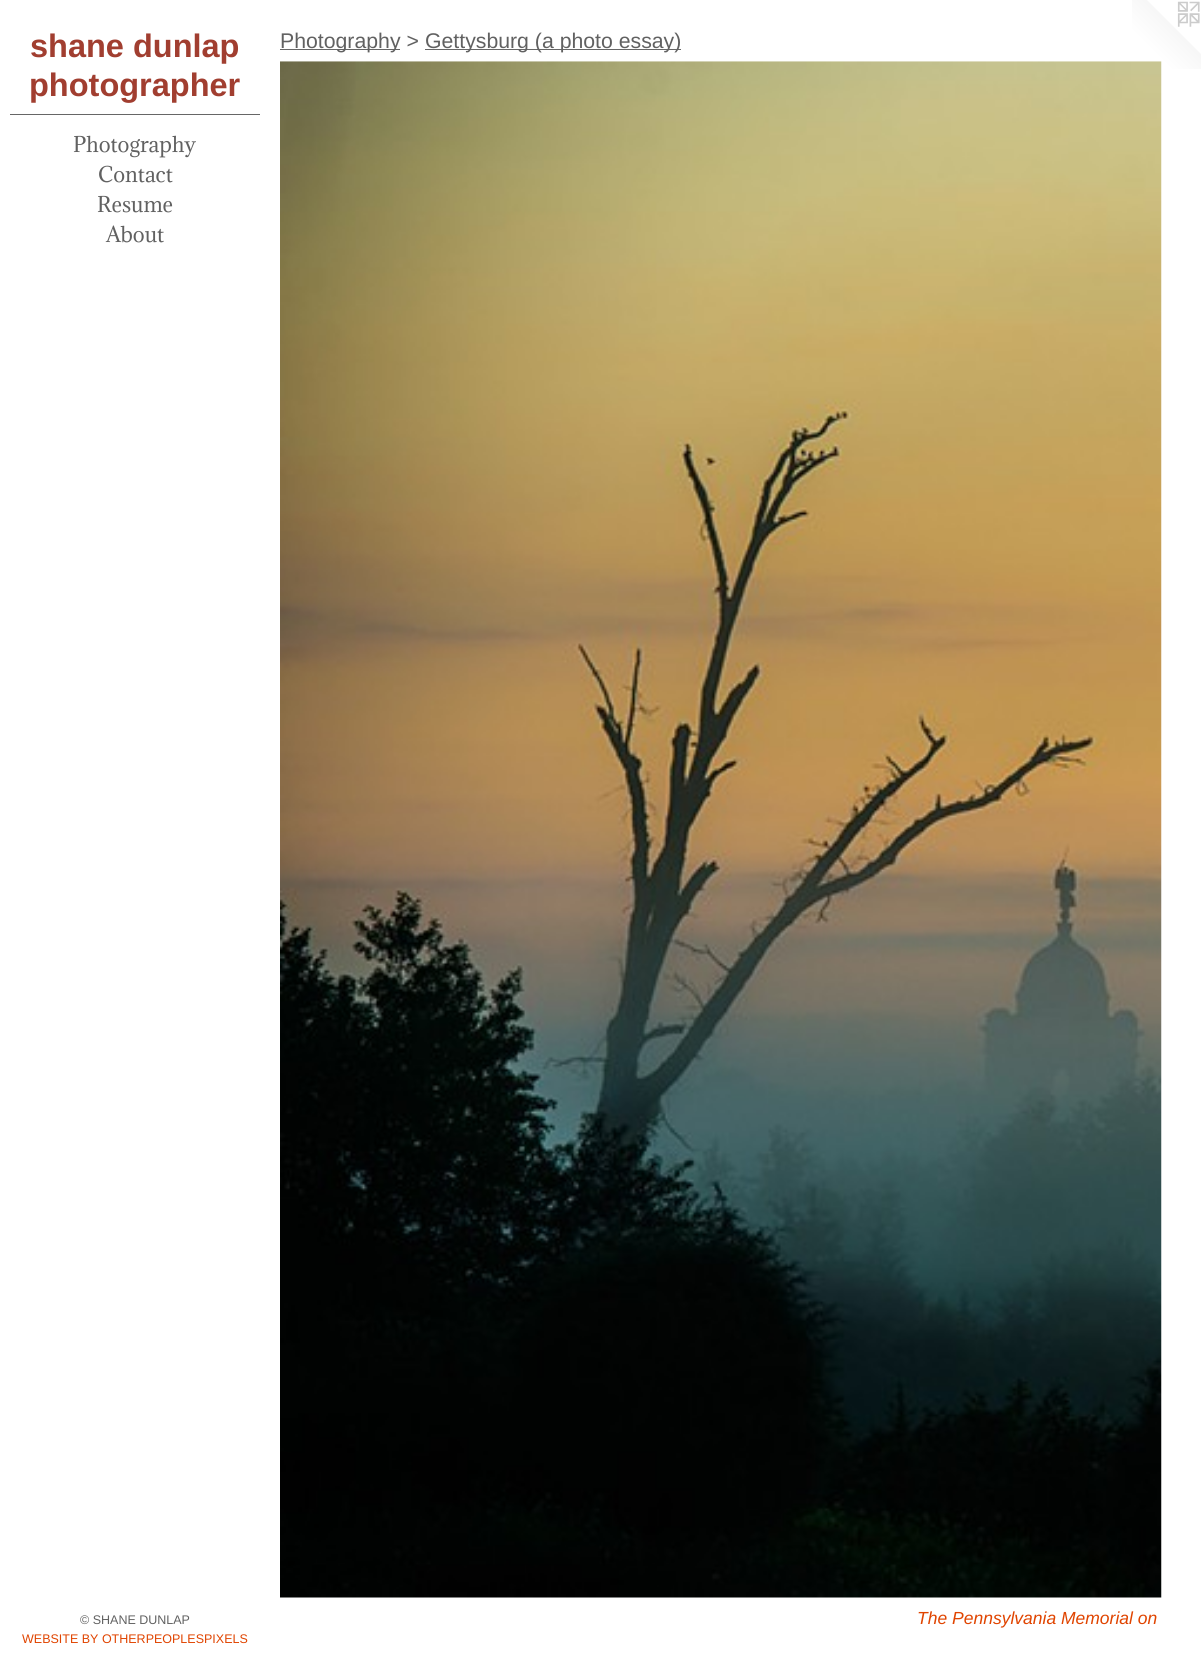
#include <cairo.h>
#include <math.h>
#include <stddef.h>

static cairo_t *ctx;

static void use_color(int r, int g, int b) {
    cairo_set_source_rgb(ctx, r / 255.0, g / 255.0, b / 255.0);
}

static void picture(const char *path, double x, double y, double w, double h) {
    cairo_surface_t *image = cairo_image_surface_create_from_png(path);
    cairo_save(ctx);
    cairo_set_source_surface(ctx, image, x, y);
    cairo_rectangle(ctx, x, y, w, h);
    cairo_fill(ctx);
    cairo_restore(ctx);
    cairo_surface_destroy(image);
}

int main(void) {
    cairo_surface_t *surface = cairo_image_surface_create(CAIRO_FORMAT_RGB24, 1201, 1676);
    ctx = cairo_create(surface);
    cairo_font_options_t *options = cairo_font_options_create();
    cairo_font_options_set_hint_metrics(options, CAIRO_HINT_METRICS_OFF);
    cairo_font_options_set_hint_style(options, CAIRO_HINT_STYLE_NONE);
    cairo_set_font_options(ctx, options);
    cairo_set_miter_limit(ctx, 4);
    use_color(255, 255, 255);
    cairo_paint(ctx);
    cairo_select_font_face(ctx, "Arimo", CAIRO_FONT_SLANT_NORMAL, CAIRO_FONT_WEIGHT_BOLD);
    cairo_set_font_size(ctx, 32.5);
    use_color(161, 62, 48);
    cairo_move_to(ctx, 30, 57);
    cairo_show_text(ctx, "shane dunlap");
    cairo_move_to(ctx, 29, 96);
    cairo_show_text(ctx, "photographer");
    use_color(102, 102, 102);
    cairo_rectangle(ctx, 10, 114, 250, 1);
    cairo_fill(ctx);
    cairo_select_font_face(ctx, "Adamina", CAIRO_FONT_SLANT_NORMAL, CAIRO_FONT_WEIGHT_NORMAL);
    cairo_set_font_size(ctx, 20);
    use_color(97, 97, 97);
    cairo_move_to(ctx, 73, 152);
    cairo_show_text(ctx, "Photography");
    cairo_move_to(ctx, 98, 182);
    cairo_show_text(ctx, "Contact");
    cairo_move_to(ctx, 97, 212);
    cairo_show_text(ctx, "Resume");
    cairo_move_to(ctx, 106, 242);
    cairo_show_text(ctx, "About");
    cairo_select_font_face(ctx, "Liberation Sans", CAIRO_FONT_SLANT_NORMAL, CAIRO_FONT_WEIGHT_NORMAL);
    cairo_set_font_size(ctx, 12.5);
    cairo_move_to(ctx, 80, 1624);
    cairo_show_text(ctx, "© SHANE DUNLAP");
    use_color(224, 68, 0);
    cairo_move_to(ctx, 22, 1643);
    cairo_show_text(ctx, "WEBSITE BY OTHERPEOPLESPIXELS");
    use_color(102, 102, 102);
    cairo_rectangle(ctx, 280, 49, 120, 1);
    cairo_fill(ctx);
    cairo_set_font_size(ctx, 21.25);
    use_color(97, 97, 97);
    cairo_move_to(ctx, 280, 48);
    cairo_show_text(ctx, "Photography >");
    use_color(102, 102, 102);
    cairo_rectangle(ctx, 425, 49, 256, 1);
    cairo_fill(ctx);
    use_color(97, 97, 97);
    cairo_move_to(ctx, 425, 48);
    cairo_show_text(ctx, "Gettysburg (a photo essay)");
    picture("img2.png", 1132, 0, 69, 69);
    picture("img1.png", 280, 61, 882, 1537);
    cairo_select_font_face(ctx, "Liberation Sans", CAIRO_FONT_SLANT_ITALIC, CAIRO_FONT_WEIGHT_NORMAL);
    cairo_set_font_size(ctx, 17.5);
    use_color(224, 68, 0);
    cairo_move_to(ctx, 917, 1624);
    cairo_show_text(ctx, "The Pennsylvania Memorial on");
    cairo_surface_write_to_png(surface, "result.png");
    cairo_font_options_destroy(options);
    cairo_destroy(ctx);
    cairo_surface_destroy(surface);
    return 0;
}
